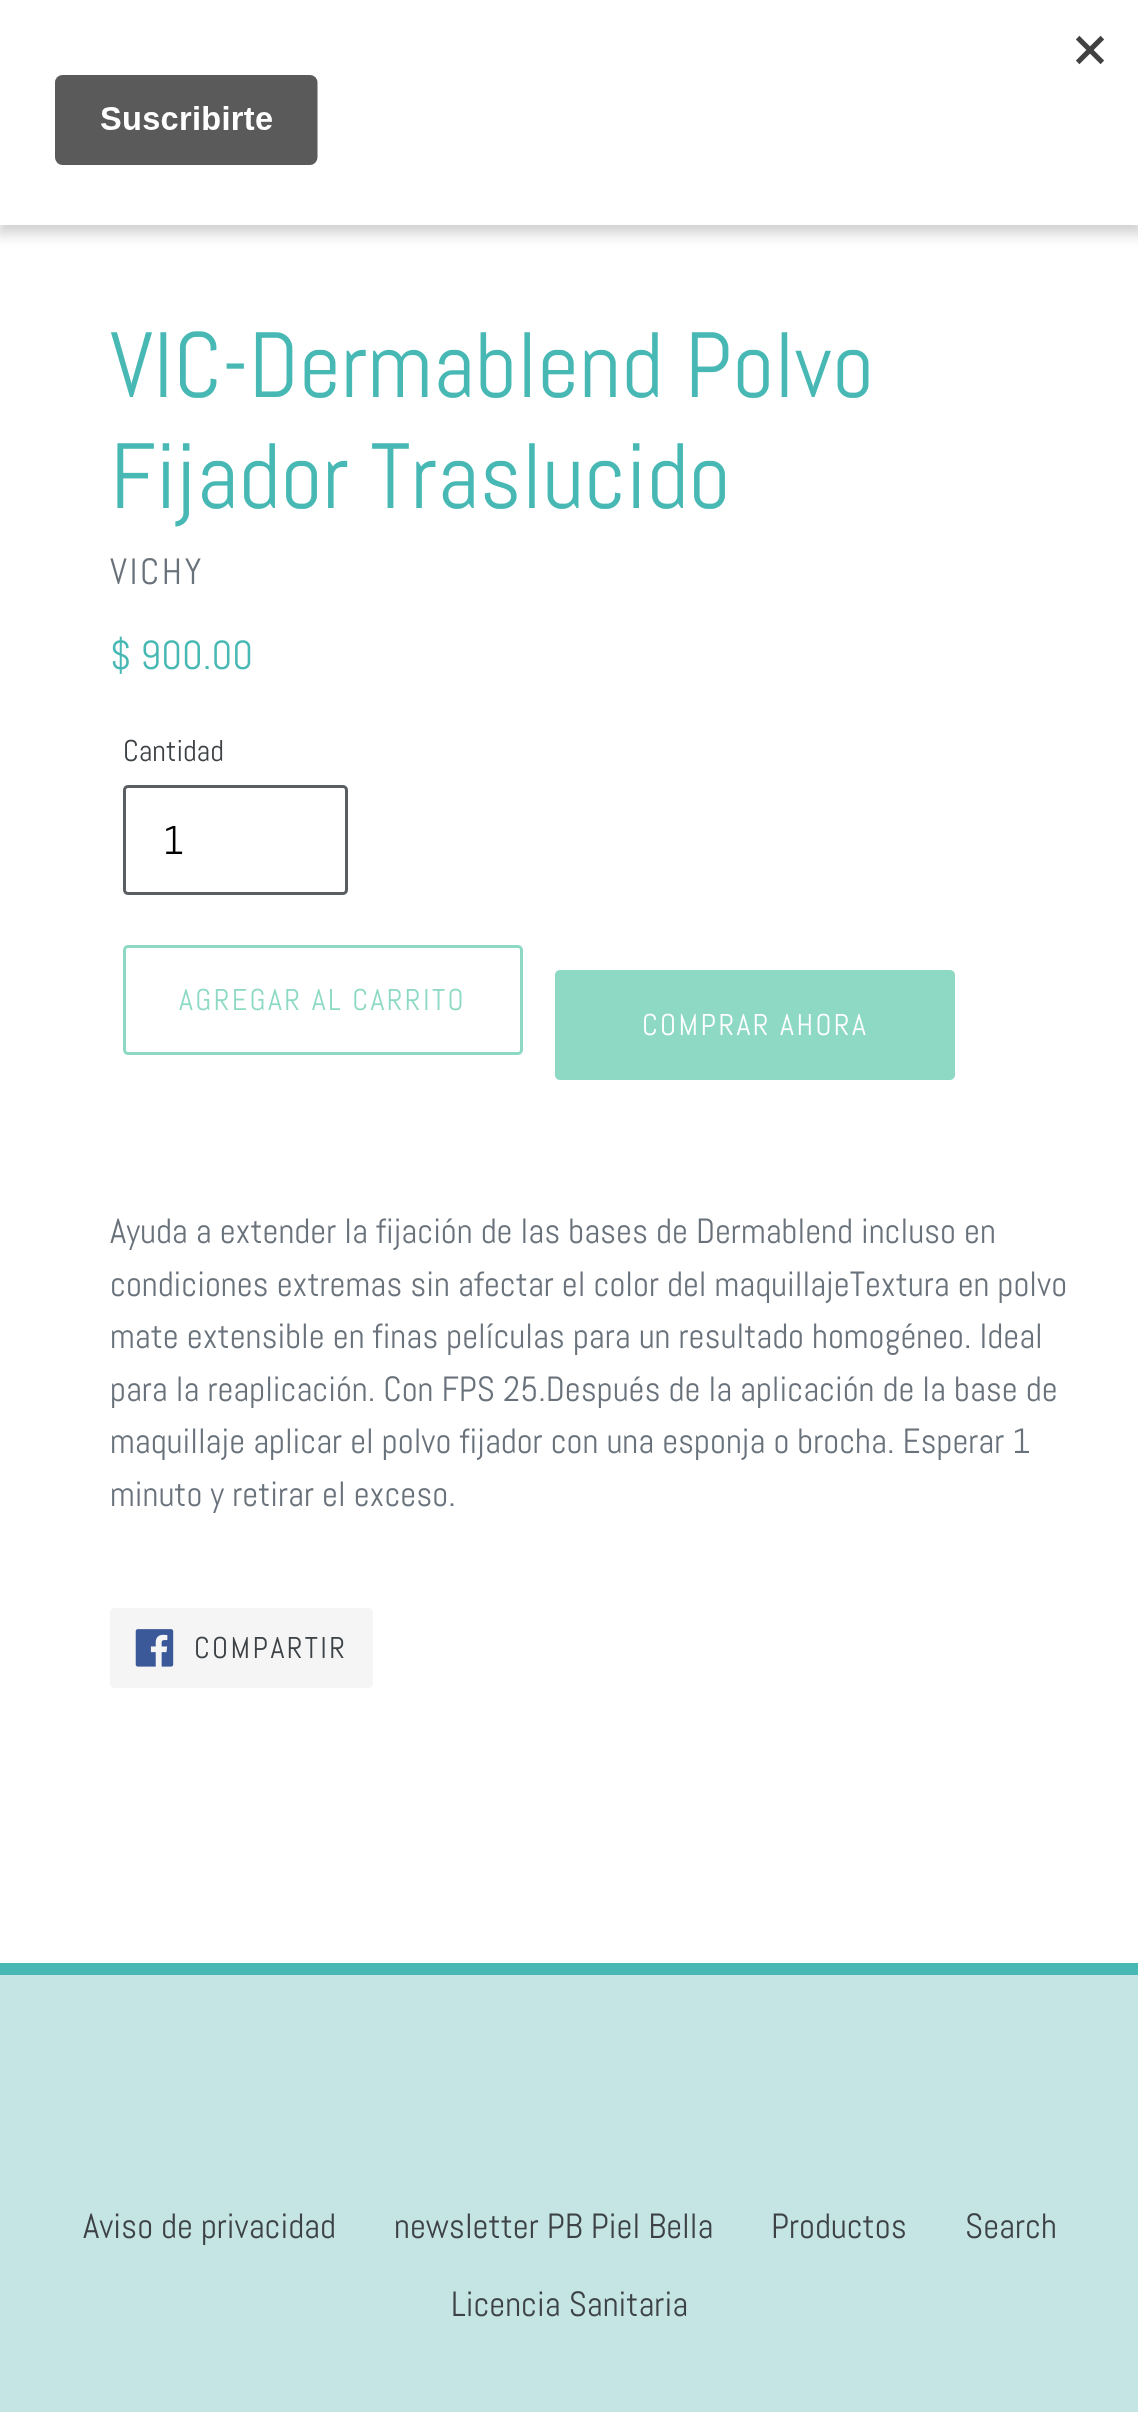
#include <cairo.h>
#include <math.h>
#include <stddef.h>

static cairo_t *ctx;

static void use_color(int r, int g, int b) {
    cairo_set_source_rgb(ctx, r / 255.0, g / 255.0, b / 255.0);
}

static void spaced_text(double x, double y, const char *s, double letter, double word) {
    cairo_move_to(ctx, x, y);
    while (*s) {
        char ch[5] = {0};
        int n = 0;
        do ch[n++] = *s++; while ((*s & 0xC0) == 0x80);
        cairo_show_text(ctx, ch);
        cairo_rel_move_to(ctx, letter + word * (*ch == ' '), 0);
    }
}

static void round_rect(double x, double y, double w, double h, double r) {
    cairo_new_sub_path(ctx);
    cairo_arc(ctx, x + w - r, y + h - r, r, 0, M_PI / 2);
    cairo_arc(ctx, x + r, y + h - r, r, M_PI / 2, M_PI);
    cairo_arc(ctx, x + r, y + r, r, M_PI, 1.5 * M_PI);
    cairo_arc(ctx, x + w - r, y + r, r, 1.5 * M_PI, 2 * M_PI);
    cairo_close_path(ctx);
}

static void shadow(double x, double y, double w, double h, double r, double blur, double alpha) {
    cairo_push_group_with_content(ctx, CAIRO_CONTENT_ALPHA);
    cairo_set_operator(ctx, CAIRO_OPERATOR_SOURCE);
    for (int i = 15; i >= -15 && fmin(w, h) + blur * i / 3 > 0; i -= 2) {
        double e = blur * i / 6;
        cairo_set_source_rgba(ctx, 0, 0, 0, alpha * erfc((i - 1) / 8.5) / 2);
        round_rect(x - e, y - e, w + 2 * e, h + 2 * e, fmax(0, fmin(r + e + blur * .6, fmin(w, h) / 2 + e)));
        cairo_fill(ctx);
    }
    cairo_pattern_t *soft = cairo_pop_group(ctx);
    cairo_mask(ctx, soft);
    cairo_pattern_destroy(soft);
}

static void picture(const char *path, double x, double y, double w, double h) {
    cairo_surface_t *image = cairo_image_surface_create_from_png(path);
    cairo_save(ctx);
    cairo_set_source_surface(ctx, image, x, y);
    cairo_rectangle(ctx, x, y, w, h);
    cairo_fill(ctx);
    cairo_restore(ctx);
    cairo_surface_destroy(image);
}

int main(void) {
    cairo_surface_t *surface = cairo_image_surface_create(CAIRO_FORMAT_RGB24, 1138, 2412);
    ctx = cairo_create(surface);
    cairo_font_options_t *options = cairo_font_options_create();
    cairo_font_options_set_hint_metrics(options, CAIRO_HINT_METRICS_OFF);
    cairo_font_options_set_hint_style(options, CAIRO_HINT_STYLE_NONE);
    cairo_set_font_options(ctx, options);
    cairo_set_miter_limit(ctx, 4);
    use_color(255, 255, 255);
    cairo_paint(ctx);
    use_color(0, 0, 0);
    shadow(0, 8, 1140, 225, 0, 7.5, 0.2);
    use_color(255, 255, 255);
    cairo_rectangle(ctx, 0, 0, 1138, 225);
    cairo_fill(ctx);
    picture("img1.png", 55, 35, 1049, 130);
    cairo_select_font_face(ctx, "Abel", CAIRO_FONT_SLANT_NORMAL, CAIRO_FONT_WEIGHT_NORMAL);
    cairo_set_font_size(ctx, 92.5);
    use_color(71, 184, 179);
    cairo_move_to(ctx, 110, 397);
    cairo_show_text(ctx, "VIC-Dermablend Polvo");
    cairo_move_to(ctx, 110, 508);
    cairo_show_text(ctx, "Fijador Traslucido");
    cairo_set_font_size(ctx, 36.5);
    use_color(105, 114, 123);
    spaced_text(110, 584, "VICHY", 2.5, 0);
    cairo_set_font_size(ctx, 40.5);
    use_color(71, 184, 179);
    cairo_move_to(ctx, 110, 669);
    cairo_show_text(ctx, "$ 900.00");
    cairo_set_font_size(ctx, 30);
    use_color(61, 66, 70);
    cairo_move_to(ctx, 123, 761);
    cairo_show_text(ctx, "Cantidad");
    round_rect(124.5, 786.5, 222, 107, 3.5);
    use_color(90, 94, 98);
    cairo_set_line_width(ctx, 3);
    cairo_stroke(ctx);
    cairo_set_font_size(ctx, 40);
    use_color(0, 0, 0);
    cairo_move_to(ctx, 163, 854);
    cairo_show_text(ctx, "1");
    round_rect(124.5, 946.5, 397, 107, 3.5);
    use_color(141, 217, 196);
    cairo_stroke(ctx);
    cairo_set_font_size(ctx, 30);
    spaced_text(179, 1010, "AGREGAR AL CARRITO", 2.4, 0);
    round_rect(555, 970, 400, 110, 5);
    cairo_fill(ctx);
    use_color(255, 255, 255);
    spaced_text(642, 1035, "COMPRAR AHORA", 2.4, 0);
    cairo_set_font_size(ctx, 35);
    use_color(105, 114, 123);
    cairo_move_to(ctx, 110, 1243);
    cairo_show_text(ctx, "Ayuda a extender la fijación de las bases de Dermablend incluso en");
    cairo_move_to(ctx, 110, 1296);
    cairo_show_text(ctx, "condiciones extremas sin afectar el color del maquillajeTextura en polvo");
    cairo_move_to(ctx, 110, 1348);
    cairo_show_text(ctx, "mate extensible en finas películas para un resultado homogéneo. Ideal");
    cairo_move_to(ctx, 110, 1401);
    cairo_show_text(ctx, "para la reaplicación. Con FPS 25.Después de la aplicación de la base de");
    cairo_move_to(ctx, 110, 1453);
    cairo_show_text(ctx, "maquillaje aplicar el polvo fijador con una esponja o brocha. Esperar 1");
    cairo_move_to(ctx, 110, 1506);
    cairo_show_text(ctx, "minuto y retirar el exceso.");
    use_color(245, 245, 245);
    round_rect(110, 1608, 263, 80, 5);
    cairo_fill(ctx);
    picture("img2.png", 135, 1629, 39, 38);
    cairo_set_font_size(ctx, 30);
    use_color(61, 66, 70);
    spaced_text(194, 1658, "COMPARTIR", 2.4, 0);
    use_color(197, 228, 228);
    cairo_rectangle(ctx, 0, 1975, 1138, 437);
    cairo_fill(ctx);
    use_color(71, 184, 179);
    cairo_rectangle(ctx, 0, 1963, 1138, 12);
    cairo_fill(ctx);
    cairo_set_font_size(ctx, 35);
    use_color(61, 66, 70);
    cairo_move_to(ctx, 83, 2238);
    cairo_show_text(ctx, "Aviso de privacidad");
    cairo_move_to(ctx, 394, 2238);
    cairo_show_text(ctx, "newsletter PB Piel Bella");
    cairo_move_to(ctx, 771, 2238);
    cairo_show_text(ctx, "Productos");
    cairo_move_to(ctx, 965, 2238);
    cairo_show_text(ctx, "Search");
    cairo_move_to(ctx, 451, 2316);
    cairo_show_text(ctx, "Licencia Sanitaria");
    cairo_surface_write_to_png(surface, "result.png");
    cairo_font_options_destroy(options);
    cairo_destroy(ctx);
    cairo_surface_destroy(surface);
    return 0;
}
